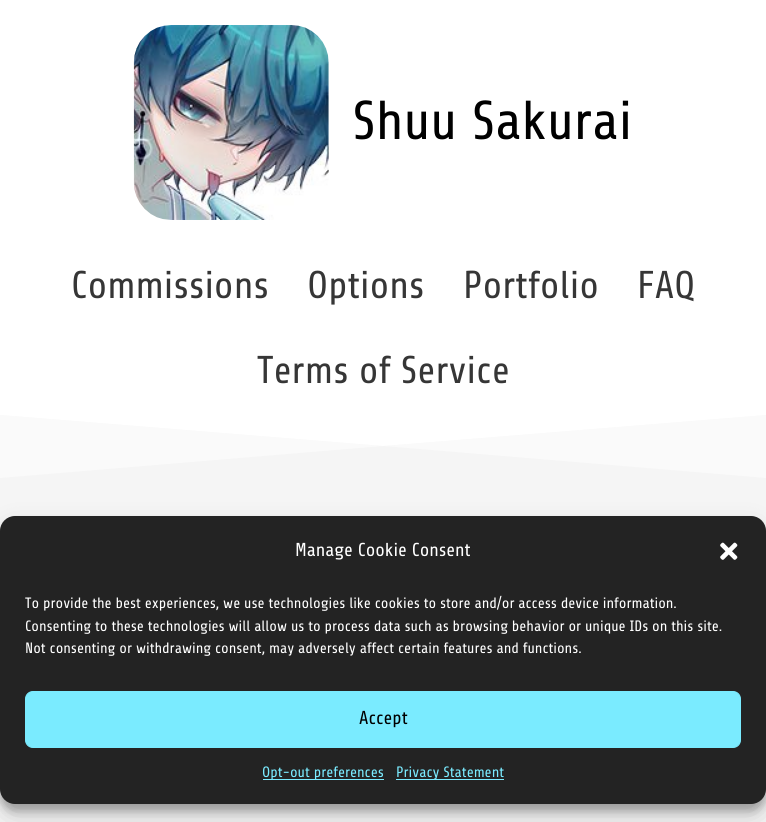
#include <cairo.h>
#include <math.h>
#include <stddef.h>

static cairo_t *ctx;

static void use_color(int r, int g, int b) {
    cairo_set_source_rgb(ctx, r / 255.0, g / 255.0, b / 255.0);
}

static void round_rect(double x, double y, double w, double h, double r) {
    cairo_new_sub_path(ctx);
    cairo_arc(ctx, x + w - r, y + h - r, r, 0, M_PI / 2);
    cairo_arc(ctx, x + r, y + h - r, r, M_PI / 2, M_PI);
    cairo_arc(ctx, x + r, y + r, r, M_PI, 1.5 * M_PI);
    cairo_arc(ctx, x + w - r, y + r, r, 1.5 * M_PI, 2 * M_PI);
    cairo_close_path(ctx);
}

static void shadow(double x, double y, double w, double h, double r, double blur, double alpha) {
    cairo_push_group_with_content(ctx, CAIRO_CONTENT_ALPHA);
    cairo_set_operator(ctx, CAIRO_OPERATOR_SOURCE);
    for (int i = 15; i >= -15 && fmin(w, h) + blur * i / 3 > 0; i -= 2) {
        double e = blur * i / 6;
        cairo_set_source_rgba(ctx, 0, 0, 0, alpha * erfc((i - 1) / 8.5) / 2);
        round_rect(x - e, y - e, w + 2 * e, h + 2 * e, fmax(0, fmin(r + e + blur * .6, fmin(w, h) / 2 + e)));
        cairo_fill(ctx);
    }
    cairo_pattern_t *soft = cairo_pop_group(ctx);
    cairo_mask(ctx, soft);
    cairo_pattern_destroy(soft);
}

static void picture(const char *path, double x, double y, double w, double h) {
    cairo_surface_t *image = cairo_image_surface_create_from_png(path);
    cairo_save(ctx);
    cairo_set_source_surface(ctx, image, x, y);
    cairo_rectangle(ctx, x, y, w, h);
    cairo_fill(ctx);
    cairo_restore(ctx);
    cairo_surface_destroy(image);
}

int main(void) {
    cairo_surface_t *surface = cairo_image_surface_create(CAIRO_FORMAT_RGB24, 766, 822);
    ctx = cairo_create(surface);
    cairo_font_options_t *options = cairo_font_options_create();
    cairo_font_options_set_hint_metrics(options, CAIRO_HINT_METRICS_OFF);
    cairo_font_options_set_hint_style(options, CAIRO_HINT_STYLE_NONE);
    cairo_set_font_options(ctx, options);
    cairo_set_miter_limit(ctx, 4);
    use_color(245, 245, 245);
    cairo_paint(ctx);
    use_color(255, 255, 255);
    cairo_rectangle(ctx, 0, 0, 766, 415);
    cairo_fill(ctx);
    picture("img1.png", 133, 25, 196, 195);
    cairo_select_font_face(ctx, "Share", CAIRO_FONT_SLANT_NORMAL, CAIRO_FONT_WEIGHT_NORMAL);
    cairo_set_font_size(ctx, 54.75);
    use_color(0, 0, 0);
    cairo_move_to(ctx, 352, 139);
    cairo_show_text(ctx, "Shuu Sakurai");
    cairo_set_font_size(ctx, 38.75);
    use_color(54, 54, 54);
    cairo_move_to(ctx, 71, 298);
    cairo_show_text(ctx, "Commissions");
    cairo_move_to(ctx, 307, 298);
    cairo_show_text(ctx, "Options");
    cairo_move_to(ctx, 463, 298);
    cairo_show_text(ctx, "Portfolio");
    cairo_move_to(ctx, 637, 298);
    cairo_show_text(ctx, "FAQ");
    cairo_move_to(ctx, 257, 383);
    cairo_show_text(ctx, "Terms of Service");
    use_color(250, 250, 250);
    cairo_new_path(ctx);
    cairo_move_to(ctx, 766, 415);
    cairo_line_to(ctx, 383, 446);
    cairo_line_to(ctx, 0, 415);
    cairo_line_to(ctx, 0, 478);
    cairo_line_to(ctx, 383, 446);
    cairo_line_to(ctx, 766, 478);
    cairo_close_path(ctx);
    cairo_fill(ctx);
    use_color(255, 255, 255);
    cairo_new_path(ctx);
    cairo_move_to(ctx, 766, 415);
    cairo_line_to(ctx, 0, 415);
    cairo_line_to(ctx, 383, 446);
    cairo_close_path(ctx);
    cairo_fill(ctx);
    use_color(0, 0, 0);
    shadow(0, 524, 766, 287, 15, 4, 0.23);
    shadow(0, 529, 766, 287, 15, 12.5, 0.19);
    use_color(35, 35, 35);
    round_rect(0, 516, 766, 288, 15);
    cairo_fill(ctx);
    cairo_set_font_size(ctx, 18.75);
    use_color(255, 255, 255);
    cairo_move_to(ctx, 295, 556);
    cairo_show_text(ctx, "Manage Cookie Consent");
    picture("img2.png", 720, 542, 18, 18);
    cairo_set_font_size(ctx, 15);
    cairo_move_to(ctx, 25, 608);
    cairo_show_text(ctx, "To provide the best experiences, we use technologies like cookies to store and/or access device information.");
    cairo_move_to(ctx, 25, 631);
    cairo_show_text(ctx, "Consenting to these technologies will allow us to process data such as browsing behavior or unique IDs on this site.");
    cairo_move_to(ctx, 25, 653);
    cairo_show_text(ctx, "Not consenting or withdrawing consent, may adversely affect certain features and functions.");
    use_color(122, 235, 255);
    round_rect(25.5, 691.5, 715, 56, 7.5);
    cairo_fill_preserve(ctx);
    cairo_set_line_width(ctx, 1);
    cairo_stroke(ctx);
    cairo_set_font_size(ctx, 18.75);
    use_color(0, 0, 0);
    cairo_move_to(ctx, 359, 724);
    cairo_show_text(ctx, "Accept");
    use_color(122, 235, 255);
    cairo_rectangle(ctx, 263, 779, 121, 1);
    cairo_fill(ctx);
    cairo_set_font_size(ctx, 15);
    cairo_move_to(ctx, 262, 777);
    cairo_show_text(ctx, "Opt-out preferences");
    cairo_rectangle(ctx, 396, 779, 108, 1);
    cairo_fill(ctx);
    cairo_move_to(ctx, 396, 777);
    cairo_show_text(ctx, "Privacy Statement");
    cairo_surface_write_to_png(surface, "result.png");
    cairo_font_options_destroy(options);
    cairo_destroy(ctx);
    cairo_surface_destroy(surface);
    return 0;
}
